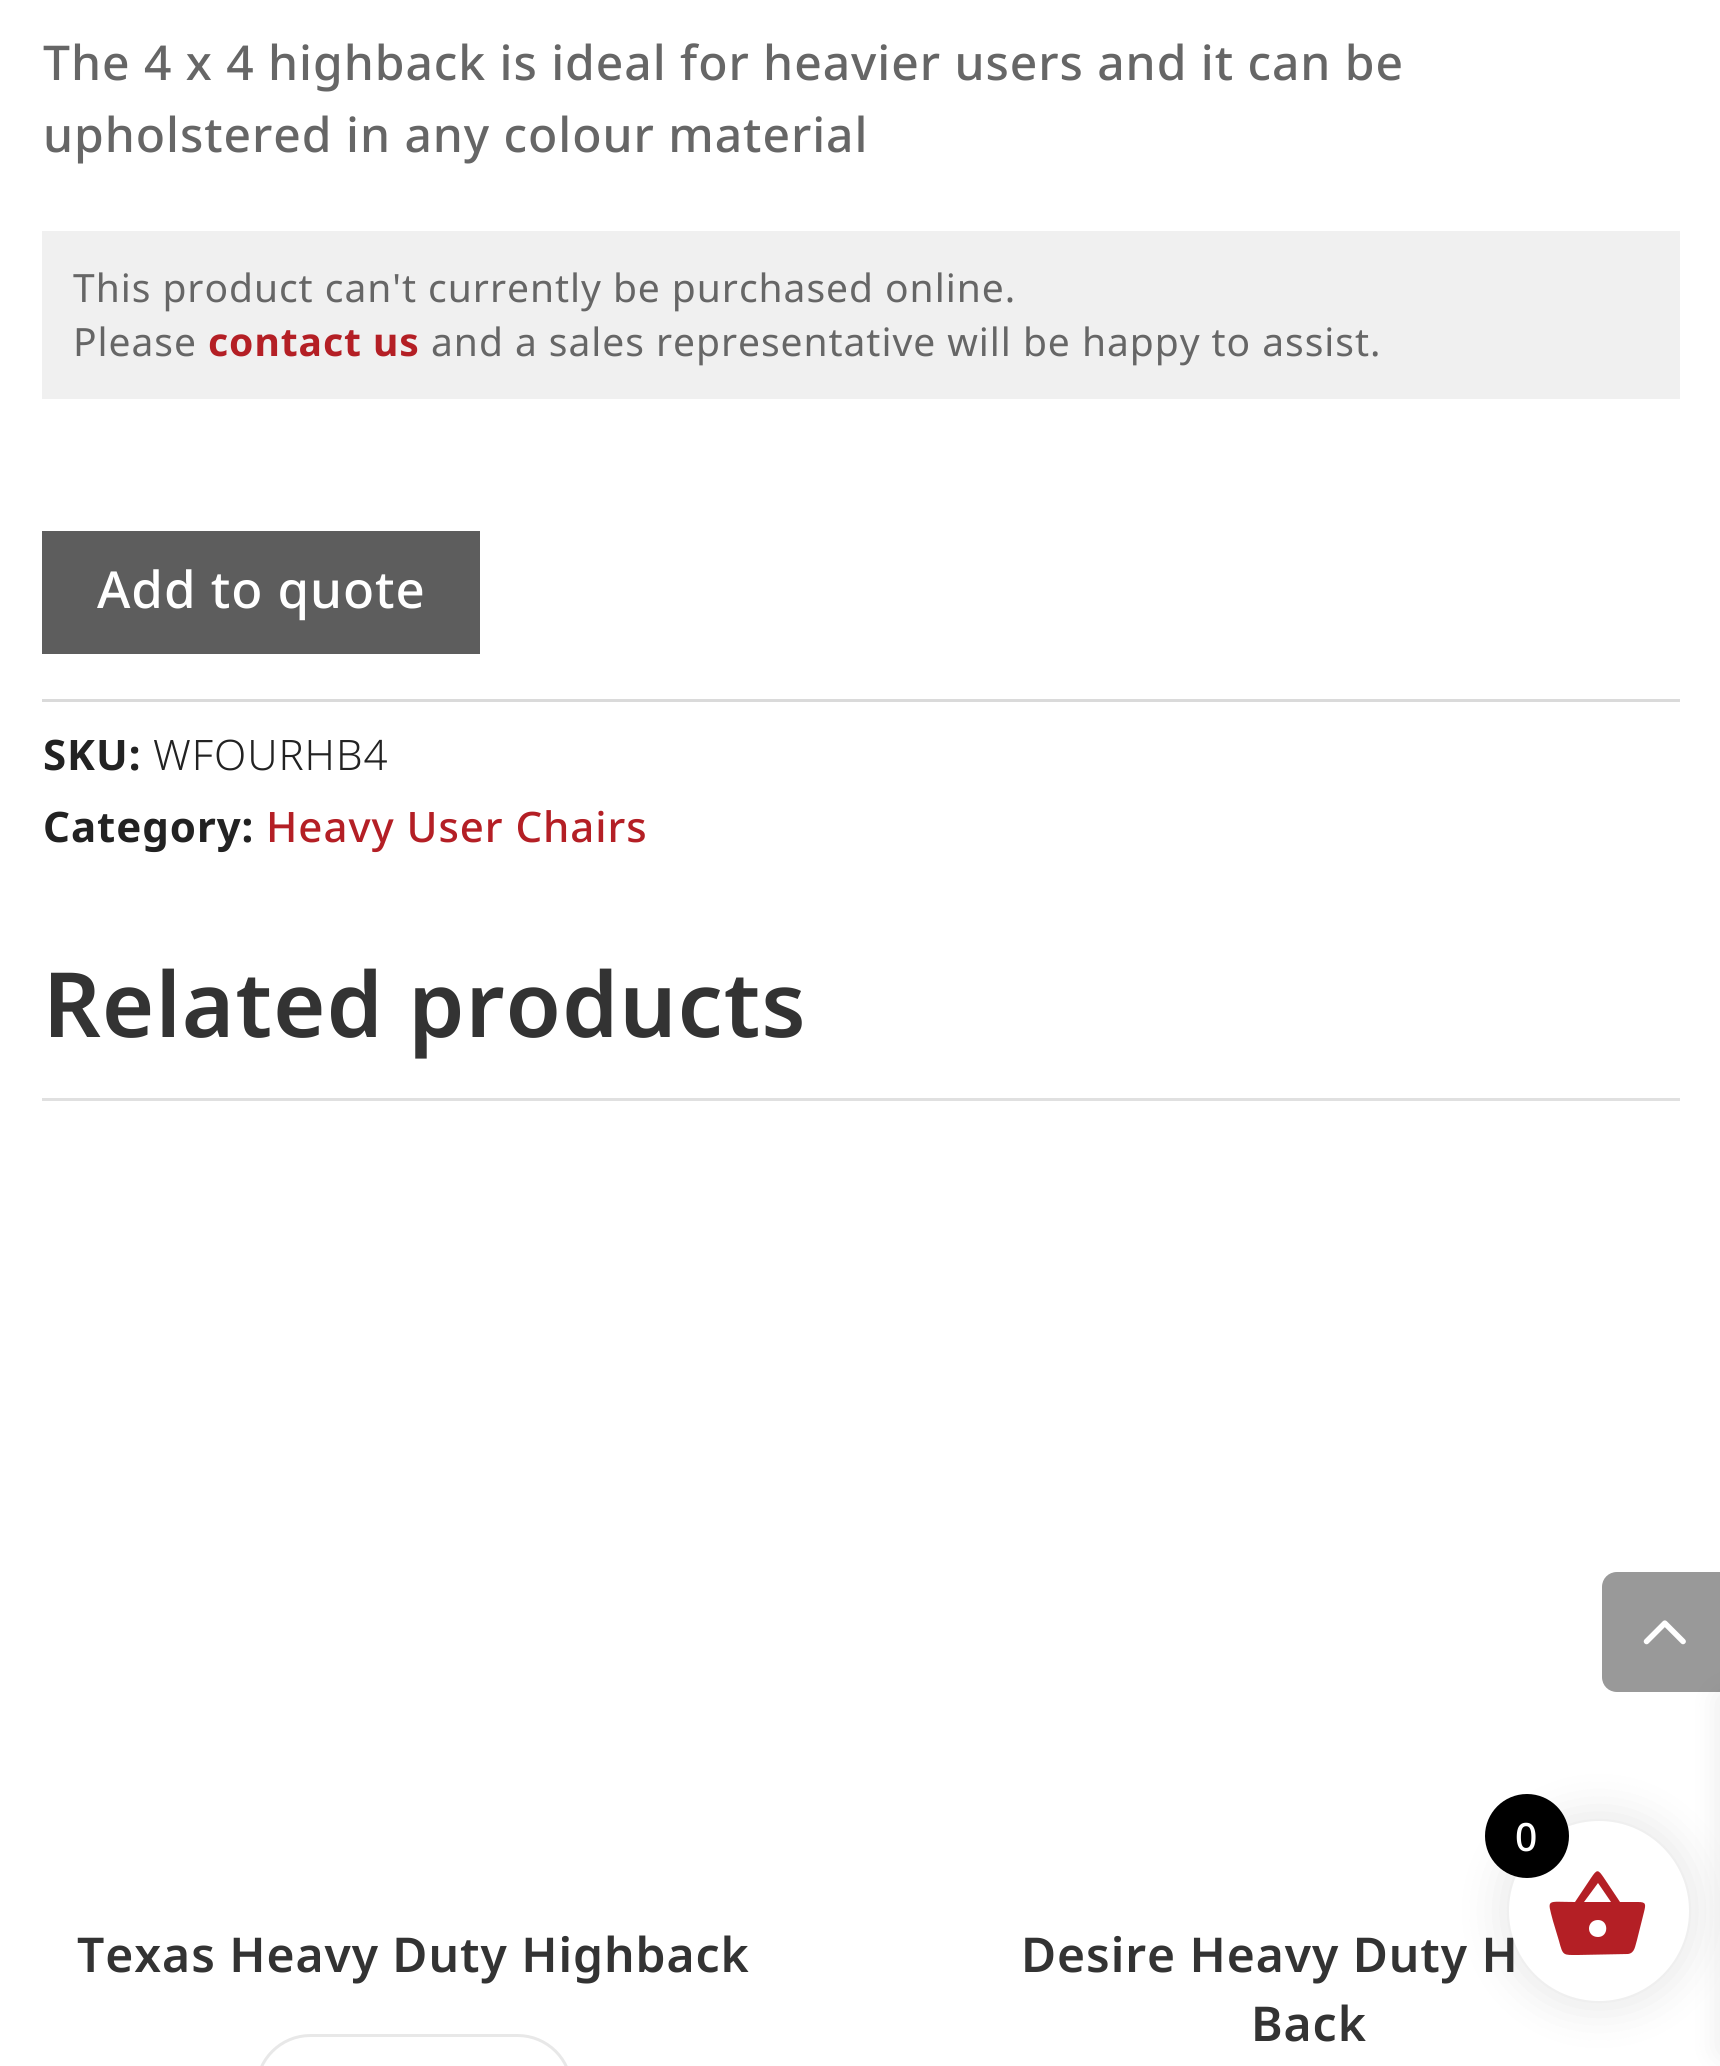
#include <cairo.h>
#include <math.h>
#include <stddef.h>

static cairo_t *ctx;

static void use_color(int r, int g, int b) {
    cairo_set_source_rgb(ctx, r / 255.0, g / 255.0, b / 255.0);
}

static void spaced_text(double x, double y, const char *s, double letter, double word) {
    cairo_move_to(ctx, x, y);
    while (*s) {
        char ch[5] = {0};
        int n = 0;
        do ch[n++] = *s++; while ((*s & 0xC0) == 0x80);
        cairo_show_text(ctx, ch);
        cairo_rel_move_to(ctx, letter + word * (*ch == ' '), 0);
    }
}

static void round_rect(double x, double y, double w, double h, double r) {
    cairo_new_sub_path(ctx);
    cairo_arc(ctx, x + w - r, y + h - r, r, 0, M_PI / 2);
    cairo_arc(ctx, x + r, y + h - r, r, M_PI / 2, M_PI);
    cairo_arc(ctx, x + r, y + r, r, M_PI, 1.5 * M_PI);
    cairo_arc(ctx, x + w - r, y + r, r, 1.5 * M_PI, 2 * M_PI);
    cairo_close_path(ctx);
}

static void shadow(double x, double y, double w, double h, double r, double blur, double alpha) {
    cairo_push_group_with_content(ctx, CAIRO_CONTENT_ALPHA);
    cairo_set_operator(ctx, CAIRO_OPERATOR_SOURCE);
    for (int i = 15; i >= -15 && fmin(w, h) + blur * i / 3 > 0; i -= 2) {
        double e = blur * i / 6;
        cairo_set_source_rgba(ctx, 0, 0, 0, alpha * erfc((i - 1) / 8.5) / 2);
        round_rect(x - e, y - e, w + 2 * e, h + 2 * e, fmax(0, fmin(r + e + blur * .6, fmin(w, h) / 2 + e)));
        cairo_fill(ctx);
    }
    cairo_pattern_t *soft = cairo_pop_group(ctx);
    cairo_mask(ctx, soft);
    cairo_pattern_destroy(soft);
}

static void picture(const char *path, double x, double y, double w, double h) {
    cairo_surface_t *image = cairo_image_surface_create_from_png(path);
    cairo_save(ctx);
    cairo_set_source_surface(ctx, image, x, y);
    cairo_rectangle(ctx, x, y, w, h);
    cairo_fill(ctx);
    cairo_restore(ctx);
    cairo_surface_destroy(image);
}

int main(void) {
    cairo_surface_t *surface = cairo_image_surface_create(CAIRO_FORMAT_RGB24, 1720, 2066);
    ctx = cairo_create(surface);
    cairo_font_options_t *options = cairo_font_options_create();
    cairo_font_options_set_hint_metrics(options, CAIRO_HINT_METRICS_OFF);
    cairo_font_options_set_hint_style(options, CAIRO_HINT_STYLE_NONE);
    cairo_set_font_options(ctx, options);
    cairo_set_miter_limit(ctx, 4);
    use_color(255, 255, 255);
    cairo_paint(ctx);
    cairo_select_font_face(ctx, "Noto Sans Medium", CAIRO_FONT_SLANT_NORMAL, CAIRO_FONT_WEIGHT_NORMAL);
    cairo_set_font_size(ctx, 48);
    use_color(102, 102, 102);
    spaced_text(43, 80, "The 4 x 4 highback is ideal for heavier users and it can be", 0.95, 0);
    spaced_text(43, 152, "upholstered in any colour material", 0.95, 0);
    use_color(240, 240, 240);
    cairo_rectangle(ctx, 42, 231, 1638, 168);
    cairo_fill(ctx);
    cairo_select_font_face(ctx, "Noto Sans", CAIRO_FONT_SLANT_NORMAL, CAIRO_FONT_WEIGHT_NORMAL);
    cairo_set_font_size(ctx, 39);
    use_color(102, 102, 102);
    spaced_text(73, 302, "This product can't currently be purchased online.", 0.95, 0);
    spaced_text(73, 356, "Please", 0.95, 0);
    cairo_select_font_face(ctx, "Noto Sans", CAIRO_FONT_SLANT_NORMAL, CAIRO_FONT_WEIGHT_BOLD);
    use_color(180, 31, 37);
    spaced_text(208, 356, "contact us", 0.95, 0);
    cairo_select_font_face(ctx, "Noto Sans", CAIRO_FONT_SLANT_NORMAL, CAIRO_FONT_WEIGHT_NORMAL);
    use_color(102, 102, 102);
    spaced_text(431, 356, "and a sales representative will be happy to assist.", 0.95, 0);
    use_color(93, 93, 93);
    cairo_rectangle(ctx, 42, 531, 438, 123);
    cairo_fill(ctx);
    cairo_select_font_face(ctx, "Noto Sans Medium", CAIRO_FONT_SLANT_NORMAL, CAIRO_FONT_WEIGHT_NORMAL);
    cairo_set_font_size(ctx, 51);
    use_color(255, 255, 255);
    spaced_text(97, 608, "Add to quote", 0.95, 0);
    use_color(218, 218, 218);
    cairo_rectangle(ctx, 42, 699, 1638, 3);
    cairo_fill(ctx);
    cairo_select_font_face(ctx, "Noto Sans", CAIRO_FONT_SLANT_NORMAL, CAIRO_FONT_WEIGHT_BOLD);
    cairo_set_font_size(ctx, 42);
    use_color(34, 34, 34);
    spaced_text(43, 770, "SKU:", 0.95, 0);
    cairo_select_font_face(ctx, "Noto Sans Light", CAIRO_FONT_SLANT_NORMAL, CAIRO_FONT_WEIGHT_NORMAL);
    spaced_text(153, 770, "WFOURHB4", 0.95, 0);
    cairo_select_font_face(ctx, "Noto Sans", CAIRO_FONT_SLANT_NORMAL, CAIRO_FONT_WEIGHT_BOLD);
    spaced_text(43, 842, "Category:", 0.95, 0);
    cairo_select_font_face(ctx, "Noto Sans Medium", CAIRO_FONT_SLANT_NORMAL, CAIRO_FONT_WEIGHT_NORMAL);
    use_color(180, 31, 37);
    spaced_text(266, 842, "Heavy User Chairs", 0.95, 0);
    cairo_select_font_face(ctx, "Noto Sans SemiBold", CAIRO_FONT_SLANT_NORMAL, CAIRO_FONT_WEIGHT_NORMAL);
    cairo_set_font_size(ctx, 90);
    use_color(51, 51, 51);
    spaced_text(43, 1037, "Related products", 0.95, 0);
    use_color(224, 224, 224);
    cairo_rectangle(ctx, 42, 1098, 1638, 3);
    cairo_fill(ctx);
    cairo_set_font_size(ctx, 48);
    use_color(51, 51, 51);
    spaced_text(77, 1972, "Texas Heavy Duty Highback", 0.95, 0);
    round_rect(256.5, 2035.5, 315, 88, 54);
    use_color(232, 232, 232);
    cairo_set_line_width(ctx, 3);
    cairo_stroke(ctx);
    use_color(51, 51, 51);
    spaced_text(1021, 1972, "Desire Heavy Duty H", 0.95, 0);
    spaced_text(1251, 2041, "Back", 0.95, 0);
    use_color(153, 153, 153);
    cairo_new_path(ctx);
    cairo_move_to(ctx, 1617, 1572);
    cairo_line_to(ctx, 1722, 1572);
    cairo_line_to(ctx, 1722, 1692);
    cairo_line_to(ctx, 1617, 1692);
    cairo_curve_to(ctx, 1608.5, 1692, 1602, 1685.5, 1602, 1677);
    cairo_line_to(ctx, 1602, 1587);
    cairo_curve_to(ctx, 1602, 1578.5, 1608.5, 1572, 1617, 1572);
    cairo_close_path(ctx);
    cairo_fill(ctx);
    picture("img1.png", 1643, 1620, 43, 25);
    use_color(0, 0, 0);
    shadow(1503, 1815, 192, 192, 96, 22.5, 0.1);
    shadow(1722, 1698, 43, 354, 0, 15, 0.1);
    use_color(255, 255, 255);
    cairo_arc(ctx, 1599, 1911, 90, 0, 2 * M_PI);
    cairo_fill(ctx);
    use_color(180, 31, 37);
    cairo_new_path(ctx);
    cairo_move_to(ctx, 1598, 1937);
    cairo_curve_to(ctx, 1609, 1937, 1609, 1920, 1598, 1920);
    cairo_curve_to(ctx, 1586, 1920, 1586, 1937, 1598, 1937);
    cairo_close_path(ctx);
    cairo_move_to(ctx, 1584, 1902);
    cairo_line_to(ctx, 1611, 1902);
    cairo_line_to(ctx, 1598, 1883);
    cairo_close_path(ctx);
    cairo_move_to(ctx, 1620, 1902);
    cairo_line_to(ctx, 1638, 1902);
    cairo_curve_to(ctx, 1646, 1902, 1646, 1904, 1644, 1912);
    cairo_line_to(ctx, 1637, 1940);
    cairo_curve_to(ctx, 1635, 1946, 1635, 1953, 1628, 1954);
    cairo_line_to(ctx, 1578, 1955);
    cairo_curve_to(ctx, 1563, 1955, 1563, 1956, 1559, 1941);
    cairo_line_to(ctx, 1553, 1921);
    cairo_curve_to(ctx, 1547, 1898, 1546, 1902, 1575, 1902);
    cairo_line_to(ctx, 1591, 1878);
    cairo_curve_to(ctx, 1597, 1869, 1598, 1869, 1604, 1878);
    cairo_close_path(ctx);
    cairo_fill(ctx);
    use_color(0, 0, 0);
    cairo_arc(ctx, 1527, 1836, 42, 0, 2 * M_PI);
    cairo_fill(ctx);
    cairo_select_font_face(ctx, "Noto Sans Medium", CAIRO_FONT_SLANT_NORMAL, CAIRO_FONT_WEIGHT_NORMAL);
    cairo_set_font_size(ctx, 39);
    use_color(255, 255, 255);
    spaced_text(1515, 1851, "0", 0.95, 0);
    cairo_surface_write_to_png(surface, "result.png");
    cairo_font_options_destroy(options);
    cairo_destroy(ctx);
    cairo_surface_destroy(surface);
    return 0;
}
